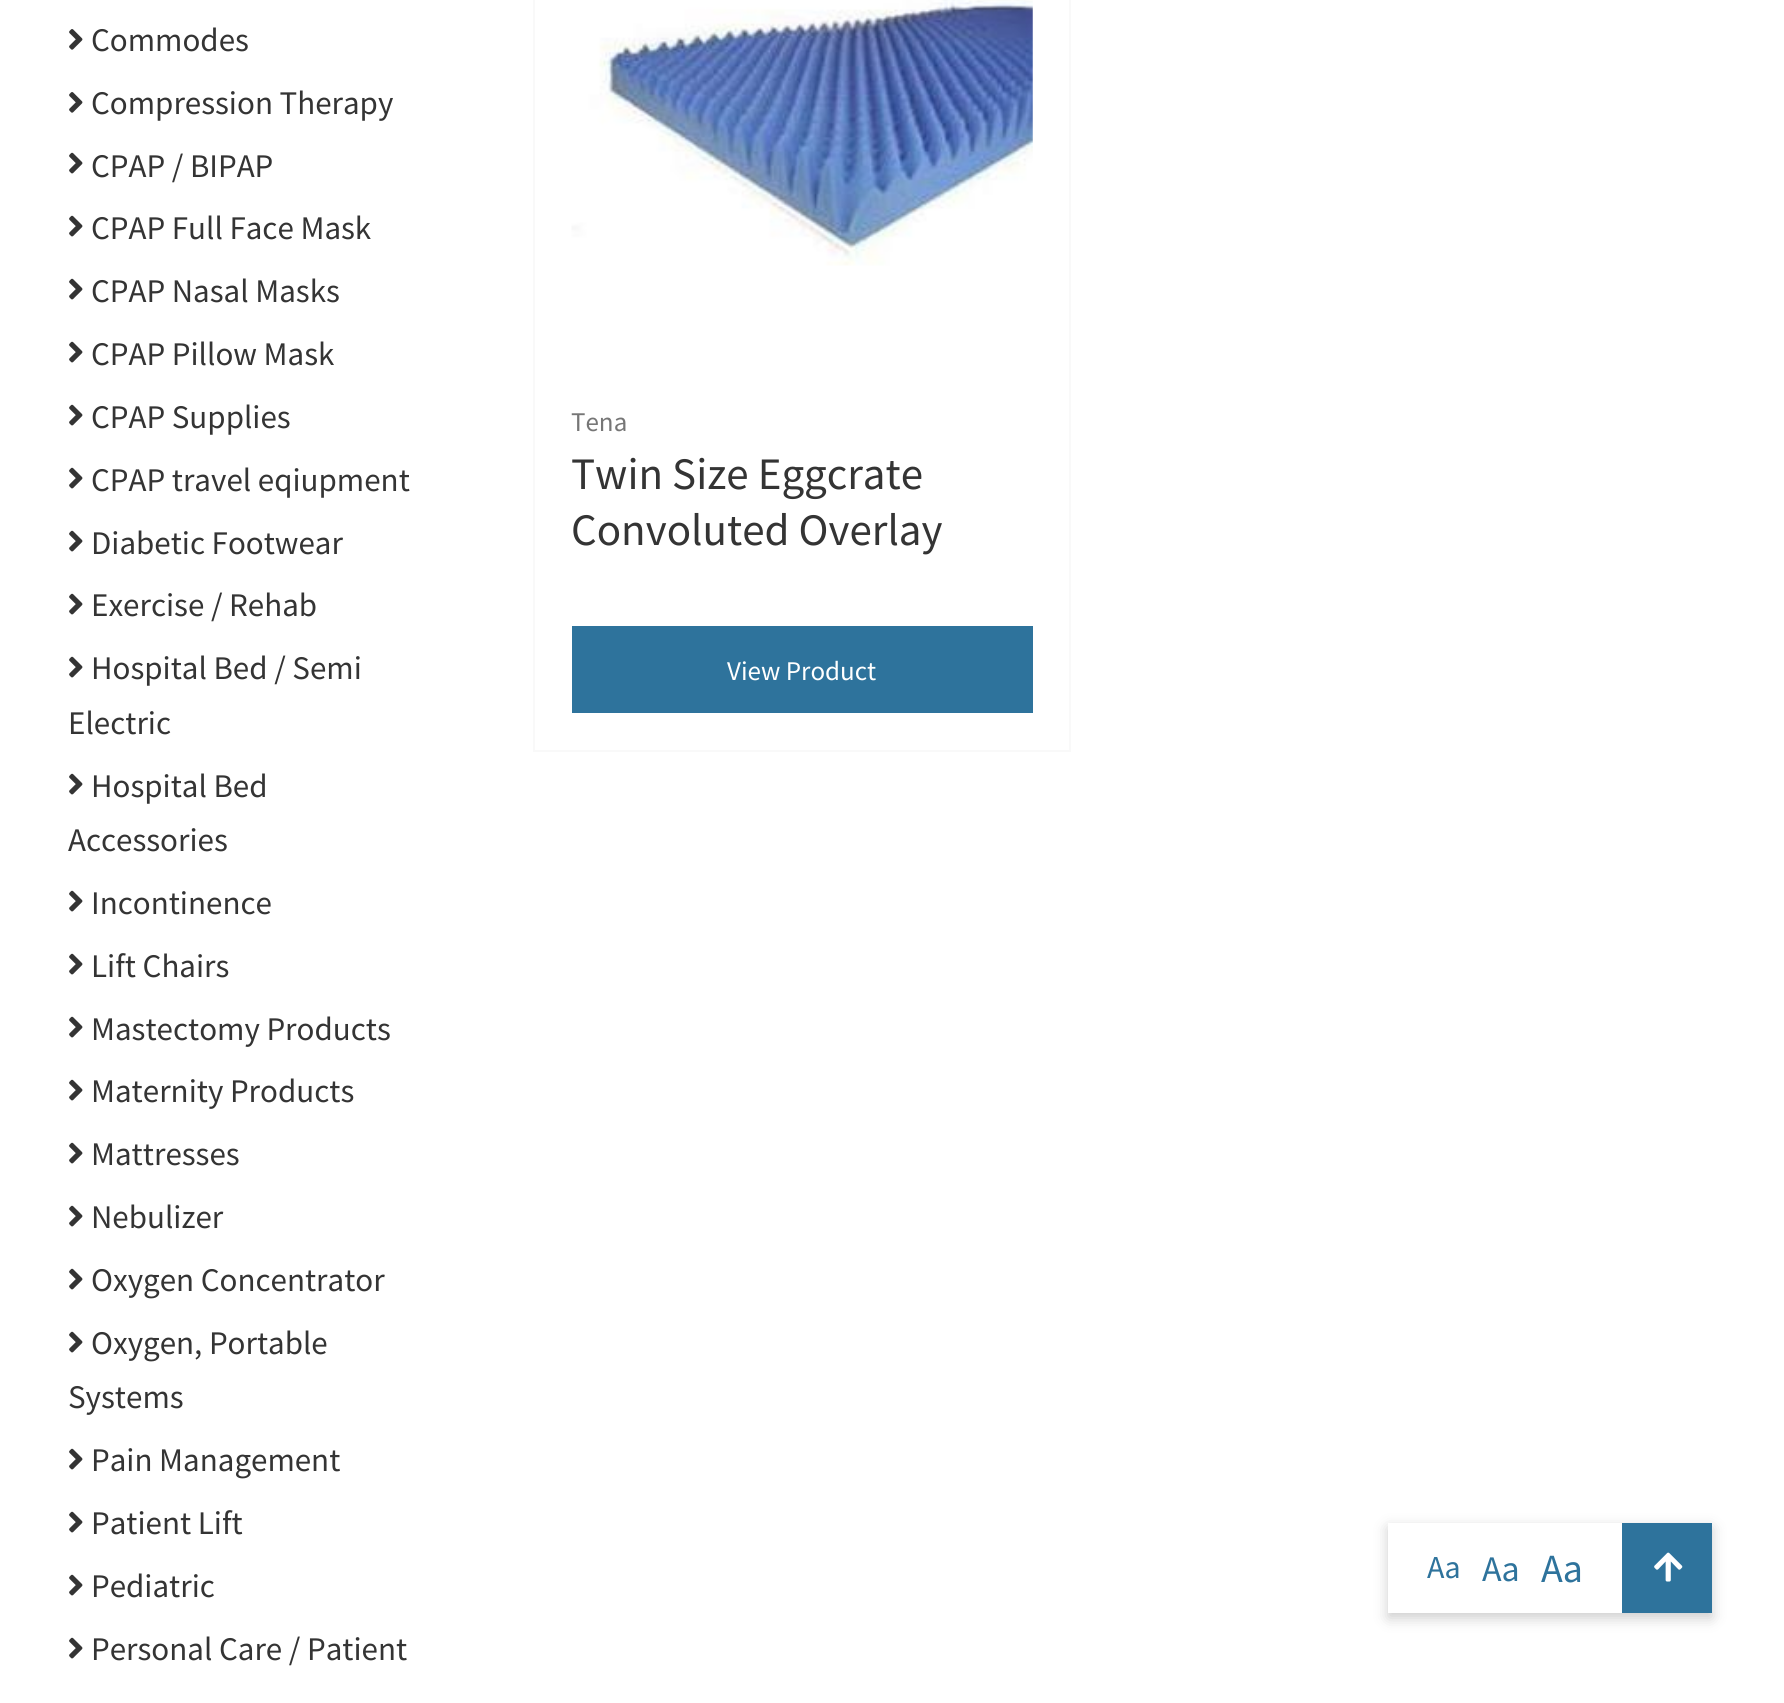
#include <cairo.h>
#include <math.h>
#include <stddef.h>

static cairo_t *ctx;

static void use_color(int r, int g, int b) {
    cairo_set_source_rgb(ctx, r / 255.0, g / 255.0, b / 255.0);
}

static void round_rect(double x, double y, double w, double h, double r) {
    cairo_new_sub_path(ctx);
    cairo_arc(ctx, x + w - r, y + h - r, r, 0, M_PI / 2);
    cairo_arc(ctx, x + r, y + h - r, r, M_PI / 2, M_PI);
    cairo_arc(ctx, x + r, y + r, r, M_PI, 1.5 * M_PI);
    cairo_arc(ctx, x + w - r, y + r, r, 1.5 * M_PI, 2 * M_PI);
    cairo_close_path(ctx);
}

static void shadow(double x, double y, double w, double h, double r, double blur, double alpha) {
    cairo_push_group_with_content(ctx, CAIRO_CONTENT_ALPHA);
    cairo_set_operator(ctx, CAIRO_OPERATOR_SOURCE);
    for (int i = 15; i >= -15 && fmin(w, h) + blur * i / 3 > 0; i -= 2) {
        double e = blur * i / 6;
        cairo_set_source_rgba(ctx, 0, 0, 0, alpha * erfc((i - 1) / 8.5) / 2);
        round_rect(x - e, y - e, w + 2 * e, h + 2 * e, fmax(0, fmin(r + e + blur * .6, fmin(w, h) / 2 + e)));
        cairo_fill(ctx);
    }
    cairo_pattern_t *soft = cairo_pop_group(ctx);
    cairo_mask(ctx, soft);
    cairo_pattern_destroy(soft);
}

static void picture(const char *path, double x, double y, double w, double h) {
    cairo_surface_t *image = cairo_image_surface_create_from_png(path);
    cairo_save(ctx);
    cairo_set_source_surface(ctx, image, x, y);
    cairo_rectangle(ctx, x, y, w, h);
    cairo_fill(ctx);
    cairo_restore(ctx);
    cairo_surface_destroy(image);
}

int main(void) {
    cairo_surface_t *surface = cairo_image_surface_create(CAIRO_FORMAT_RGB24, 1784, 1703);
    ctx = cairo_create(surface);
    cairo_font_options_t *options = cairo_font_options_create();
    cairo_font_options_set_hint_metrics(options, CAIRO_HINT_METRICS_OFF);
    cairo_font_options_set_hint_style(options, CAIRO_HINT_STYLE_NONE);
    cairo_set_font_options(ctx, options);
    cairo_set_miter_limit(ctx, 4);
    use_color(255, 255, 255);
    cairo_paint(ctx);
    picture("img1.png", 69, 29, 14, 21);
    cairo_select_font_face(ctx, "Source Sans Pro", CAIRO_FONT_SLANT_NORMAL, CAIRO_FONT_WEIGHT_NORMAL);
    cairo_set_font_size(ctx, 33);
    use_color(52, 52, 52);
    cairo_move_to(ctx, 91, 51);
    cairo_show_text(ctx, "Commodes");
    picture("img1.png", 69, 92, 14, 21);
    cairo_move_to(ctx, 91, 114);
    cairo_show_text(ctx, "Compression Therapy");
    picture("img2.png", 69, 152, 14, 22);
    cairo_move_to(ctx, 91, 177);
    cairo_show_text(ctx, "CPAP / BIPAP");
    picture("img2.png", 69, 215, 14, 22);
    cairo_move_to(ctx, 91, 239);
    cairo_show_text(ctx, "CPAP Full Face Mask");
    picture("img2.png", 69, 278, 14, 22);
    cairo_move_to(ctx, 91, 302);
    cairo_show_text(ctx, "CPAP Nasal Masks");
    picture("img2.png", 69, 341, 14, 22);
    cairo_move_to(ctx, 91, 365);
    cairo_show_text(ctx, "CPAP Pillow Mask");
    picture("img2.png", 69, 404, 14, 22);
    cairo_move_to(ctx, 91, 428);
    cairo_show_text(ctx, "CPAP Supplies");
    picture("img2.png", 69, 467, 14, 22);
    cairo_move_to(ctx, 91, 491);
    cairo_show_text(ctx, "CPAP travel eqiupment");
    picture("img2.png", 69, 530, 14, 22);
    cairo_move_to(ctx, 91, 554);
    cairo_show_text(ctx, "Diabetic Footwear");
    picture("img2.png", 69, 593, 14, 22);
    cairo_move_to(ctx, 91, 616);
    cairo_show_text(ctx, "Exercise / Rehab");
    picture("img2.png", 69, 656, 14, 22);
    cairo_move_to(ctx, 91, 679);
    cairo_show_text(ctx, "Hospital Bed / Semi");
    cairo_move_to(ctx, 68, 734);
    cairo_show_text(ctx, "Electric");
    picture("img2.png", 69, 773, 14, 22);
    cairo_move_to(ctx, 91, 797);
    cairo_show_text(ctx, "Hospital Bed");
    cairo_move_to(ctx, 68, 851);
    cairo_show_text(ctx, "Accessories");
    picture("img2.png", 69, 890, 14, 22);
    cairo_move_to(ctx, 91, 914);
    cairo_show_text(ctx, "Incontinence");
    picture("img2.png", 69, 953, 14, 22);
    cairo_move_to(ctx, 91, 977);
    cairo_show_text(ctx, "Lift Chairs");
    picture("img2.png", 69, 1016, 14, 22);
    cairo_move_to(ctx, 91, 1040);
    cairo_show_text(ctx, "Mastectomy Products");
    picture("img2.png", 69, 1079, 14, 22);
    cairo_move_to(ctx, 91, 1102);
    cairo_show_text(ctx, "Maternity Products");
    picture("img2.png", 69, 1142, 14, 22);
    cairo_move_to(ctx, 91, 1165);
    cairo_show_text(ctx, "Mattresses");
    picture("img2.png", 69, 1205, 14, 22);
    cairo_move_to(ctx, 91, 1228);
    cairo_show_text(ctx, "Nebulizer");
    picture("img2.png", 69, 1268, 14, 22);
    cairo_move_to(ctx, 91, 1291);
    cairo_show_text(ctx, "Oxygen Concentrator");
    picture("img2.png", 69, 1331, 14, 22);
    cairo_move_to(ctx, 91, 1354);
    cairo_show_text(ctx, "Oxygen, Portable");
    cairo_move_to(ctx, 68, 1408);
    cairo_show_text(ctx, "Systems");
    picture("img2.png", 69, 1448, 14, 22);
    cairo_move_to(ctx, 91, 1471);
    cairo_show_text(ctx, "Pain Management");
    picture("img2.png", 69, 1511, 14, 22);
    cairo_move_to(ctx, 91, 1534);
    cairo_show_text(ctx, "Patient Lift");
    picture("img2.png", 69, 1574, 14, 22);
    cairo_move_to(ctx, 91, 1597);
    cairo_show_text(ctx, "Pediatric");
    picture("img2.png", 69, 1637, 14, 22);
    cairo_move_to(ctx, 91, 1660);
    cairo_show_text(ctx, "Personal Care / Patient");
    cairo_rectangle(ctx, 534, -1, 536, 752);
    use_color(249, 249, 249);
    cairo_stroke(ctx);
    picture("img3.png", 571, 0, 462, 266);
    cairo_set_font_size(ctx, 27);
    use_color(118, 118, 118);
    cairo_move_to(ctx, 571, 431);
    cairo_show_text(ctx, "Tena");
    cairo_set_font_size(ctx, 45);
    use_color(52, 52, 52);
    cairo_move_to(ctx, 571, 489);
    cairo_show_text(ctx, "Twin Size Eggcrate");
    cairo_move_to(ctx, 571, 545);
    cairo_show_text(ctx, "Convoluted Overlay");
    use_color(46, 115, 156);
    cairo_rectangle(ctx, 572, 626, 461, 87);
    cairo_fill(ctx);
    cairo_set_font_size(ctx, 27);
    use_color(255, 255, 255);
    cairo_move_to(ctx, 727, 680);
    cairo_show_text(ctx, "View Product");
    use_color(0, 0, 0);
    shadow(1388, 1528, 324, 90, 0, 7, 0.2);
    use_color(255, 255, 255);
    cairo_rectangle(ctx, 1388, 1523, 234, 90);
    cairo_fill(ctx);
    cairo_set_font_size(ctx, 32);
    use_color(46, 115, 156);
    cairo_move_to(ctx, 1427, 1578);
    cairo_show_text(ctx, "Aa");
    cairo_set_font_size(ctx, 36);
    cairo_move_to(ctx, 1482, 1581);
    cairo_show_text(ctx, "Aa");
    cairo_set_font_size(ctx, 40);
    cairo_move_to(ctx, 1541, 1582);
    cairo_show_text(ctx, "Aa");
    cairo_rectangle(ctx, 1622, 1523, 90, 90);
    cairo_fill(ctx);
    picture("img4.png", 1654, 1552, 29, 30);
    cairo_surface_write_to_png(surface, "result.png");
    cairo_font_options_destroy(options);
    cairo_destroy(ctx);
    cairo_surface_destroy(surface);
    return 0;
}
